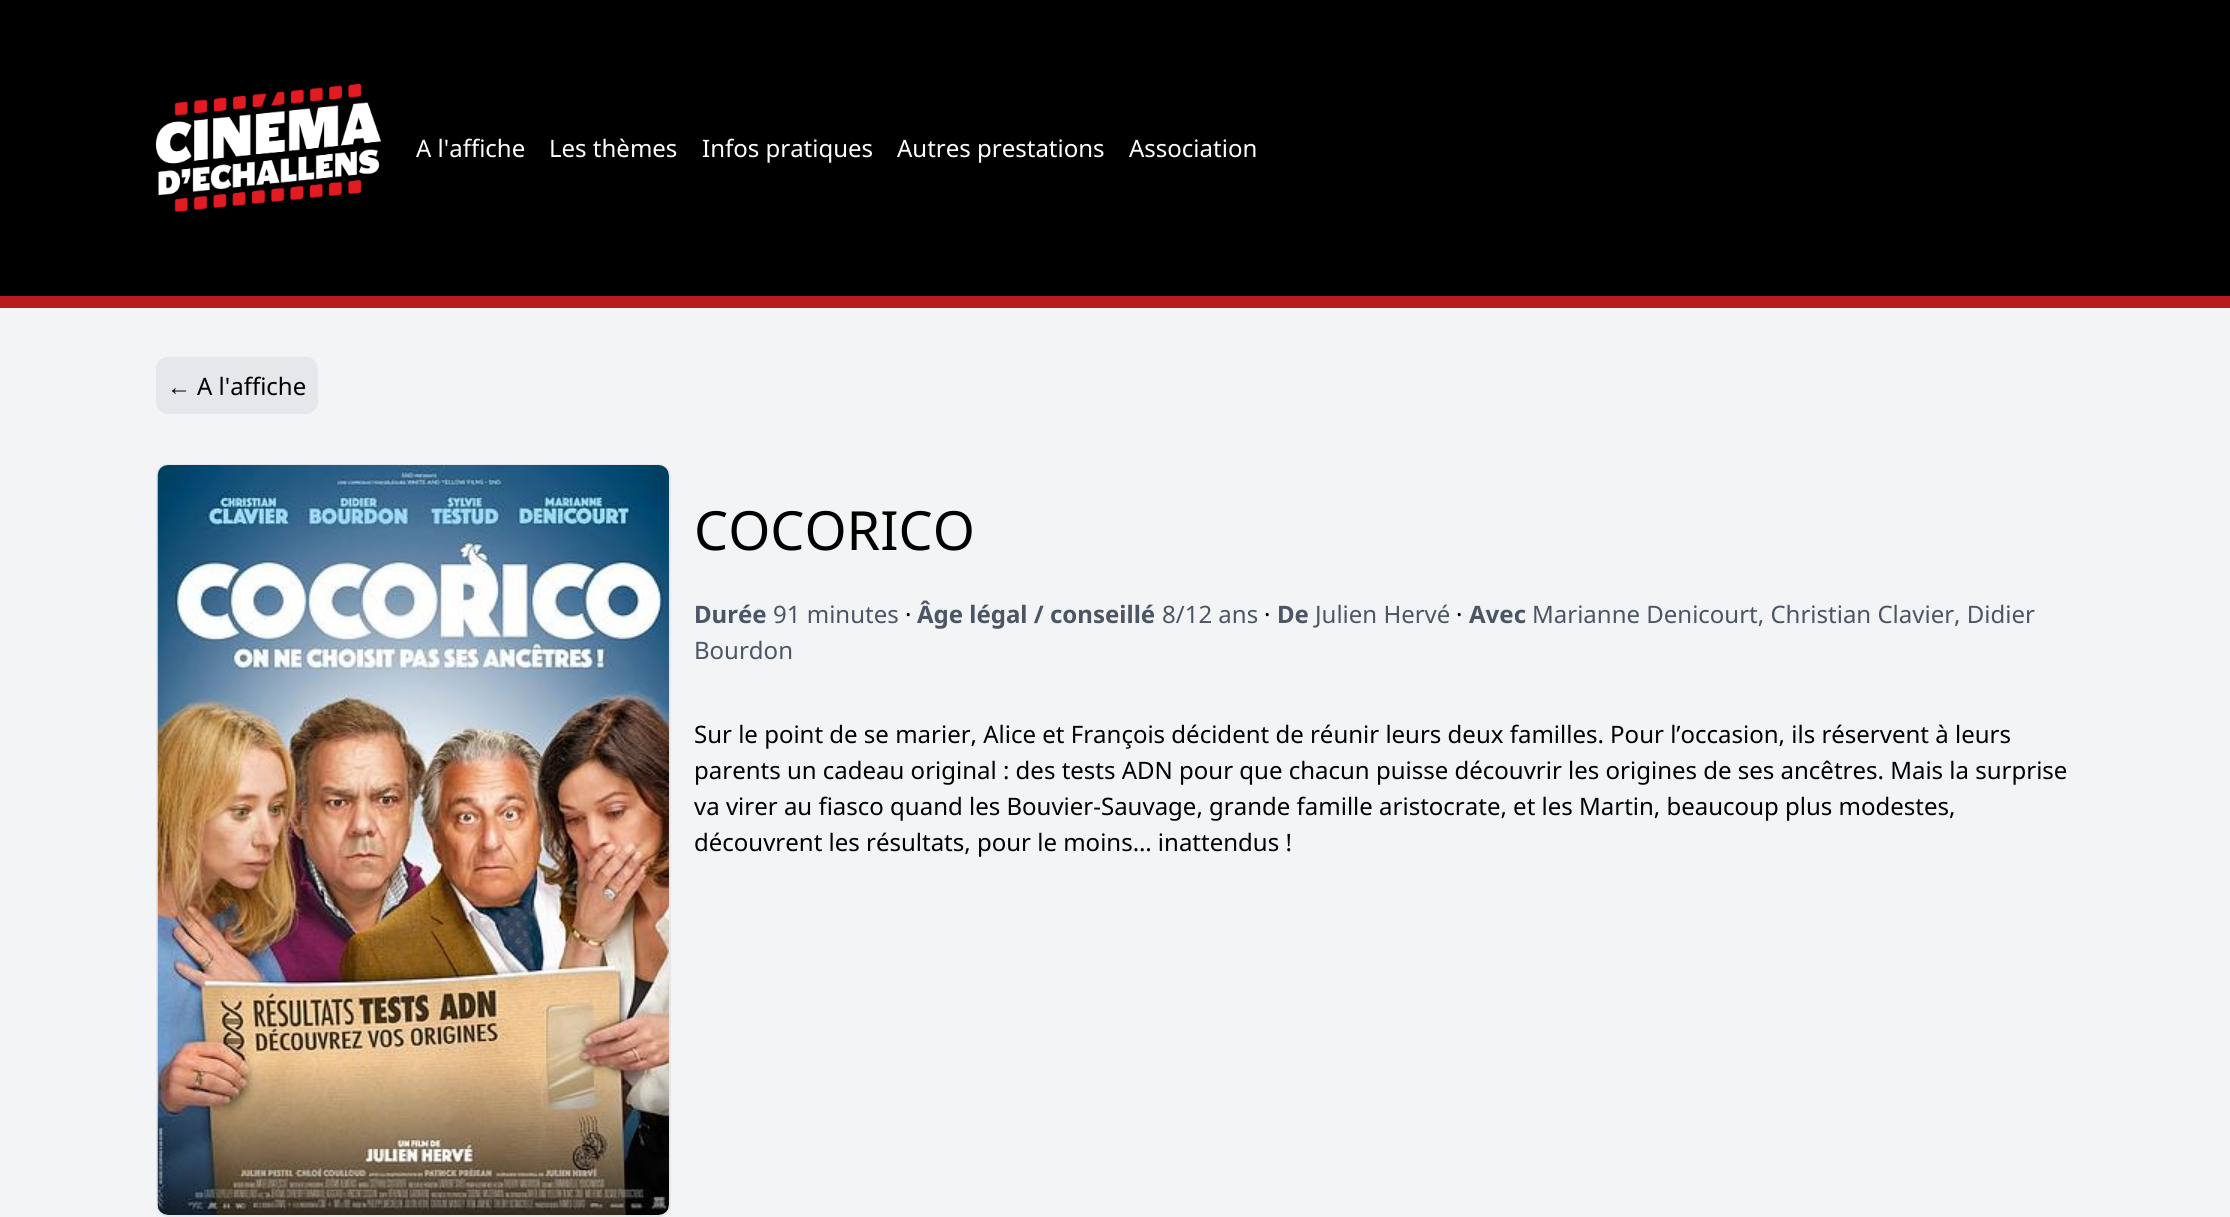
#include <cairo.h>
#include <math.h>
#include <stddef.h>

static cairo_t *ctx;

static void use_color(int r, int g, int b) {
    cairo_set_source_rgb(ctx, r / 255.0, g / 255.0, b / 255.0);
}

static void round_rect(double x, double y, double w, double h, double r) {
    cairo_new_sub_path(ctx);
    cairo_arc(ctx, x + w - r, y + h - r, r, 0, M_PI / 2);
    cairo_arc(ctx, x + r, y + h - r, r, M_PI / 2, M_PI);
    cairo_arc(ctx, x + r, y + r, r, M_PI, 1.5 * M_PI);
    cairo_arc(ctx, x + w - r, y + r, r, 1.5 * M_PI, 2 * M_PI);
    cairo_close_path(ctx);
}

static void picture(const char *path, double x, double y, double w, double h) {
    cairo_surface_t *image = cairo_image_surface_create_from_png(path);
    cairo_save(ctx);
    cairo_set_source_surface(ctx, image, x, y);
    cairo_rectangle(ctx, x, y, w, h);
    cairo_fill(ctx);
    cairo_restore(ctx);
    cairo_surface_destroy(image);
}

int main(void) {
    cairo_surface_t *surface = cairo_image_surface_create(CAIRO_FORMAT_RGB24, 2230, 1217);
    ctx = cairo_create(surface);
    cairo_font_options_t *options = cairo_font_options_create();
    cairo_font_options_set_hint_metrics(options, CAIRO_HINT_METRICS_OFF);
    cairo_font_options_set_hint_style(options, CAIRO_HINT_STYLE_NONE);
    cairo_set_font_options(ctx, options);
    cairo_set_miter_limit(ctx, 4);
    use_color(243, 244, 246);
    cairo_paint(ctx);
    use_color(0, 0, 0);
    cairo_rectangle(ctx, 0, 0, 2230, 296);
    cairo_fill(ctx);
    use_color(185, 28, 28);
    cairo_rectangle(ctx, 0, 296, 2230, 12);
    cairo_fill(ctx);
    picture("img1.png", 156, 84, 225, 128);
    cairo_select_font_face(ctx, "Noto Sans", CAIRO_FONT_SLANT_NORMAL, CAIRO_FONT_WEIGHT_NORMAL);
    cairo_set_font_size(ctx, 24);
    use_color(255, 255, 255);
    cairo_move_to(ctx, 416, 157);
    cairo_show_text(ctx, "A l'affiche");
    cairo_move_to(ctx, 549, 157);
    cairo_show_text(ctx, "Les thèmes");
    cairo_move_to(ctx, 702, 157);
    cairo_show_text(ctx, "Infos pratiques");
    cairo_move_to(ctx, 897, 157);
    cairo_show_text(ctx, "Autres prestations");
    cairo_move_to(ctx, 1129, 157);
    cairo_show_text(ctx, "Association");
    use_color(229, 231, 235);
    round_rect(156, 357, 162, 57, 12);
    cairo_fill(ctx);
    cairo_select_font_face(ctx, "Liberation Sans", CAIRO_FONT_SLANT_NORMAL, CAIRO_FONT_WEIGHT_NORMAL);
    use_color(0, 0, 0);
    cairo_move_to(ctx, 167, 395);
    cairo_show_text(ctx, "←");
    cairo_select_font_face(ctx, "Noto Sans", CAIRO_FONT_SLANT_NORMAL, CAIRO_FONT_WEIGHT_NORMAL);
    cairo_move_to(ctx, 197, 395);
    cairo_show_text(ctx, "A l'affiche");
    round_rect(157, 465, 513, 751, 11);
    use_color(229, 231, 235);
    cairo_stroke(ctx);
    picture("img2.png", 157, 465, 512, 750);
    cairo_set_font_size(ctx, 54);
    use_color(0, 0, 0);
    cairo_move_to(ctx, 694, 550);
    cairo_show_text(ctx, "COCORICO");
    cairo_select_font_face(ctx, "Noto Sans", CAIRO_FONT_SLANT_NORMAL, CAIRO_FONT_WEIGHT_BOLD);
    cairo_set_font_size(ctx, 24);
    use_color(75, 85, 99);
    cairo_move_to(ctx, 694, 623);
    cairo_show_text(ctx, "Durée");
    cairo_select_font_face(ctx, "Noto Sans", CAIRO_FONT_SLANT_NORMAL, CAIRO_FONT_WEIGHT_NORMAL);
    cairo_move_to(ctx, 773, 623);
    cairo_show_text(ctx, "91 minutes");
    use_color(0, 0, 0);
    cairo_move_to(ctx, 905, 623);
    cairo_show_text(ctx, "·");
    cairo_select_font_face(ctx, "Noto Sans", CAIRO_FONT_SLANT_NORMAL, CAIRO_FONT_WEIGHT_BOLD);
    use_color(75, 85, 99);
    cairo_move_to(ctx, 917, 623);
    cairo_show_text(ctx, "Âge légal / conseillé");
    cairo_select_font_face(ctx, "Noto Sans", CAIRO_FONT_SLANT_NORMAL, CAIRO_FONT_WEIGHT_NORMAL);
    cairo_move_to(ctx, 1162, 623);
    cairo_show_text(ctx, "8/12 ans");
    use_color(0, 0, 0);
    cairo_move_to(ctx, 1264, 623);
    cairo_show_text(ctx, "·");
    cairo_select_font_face(ctx, "Noto Sans", CAIRO_FONT_SLANT_NORMAL, CAIRO_FONT_WEIGHT_BOLD);
    use_color(75, 85, 99);
    cairo_move_to(ctx, 1277, 623);
    cairo_show_text(ctx, "De");
    cairo_select_font_face(ctx, "Noto Sans", CAIRO_FONT_SLANT_NORMAL, CAIRO_FONT_WEIGHT_NORMAL);
    cairo_move_to(ctx, 1315, 623);
    cairo_show_text(ctx, "Julien Hervé");
    use_color(0, 0, 0);
    cairo_move_to(ctx, 1456, 623);
    cairo_show_text(ctx, "·");
    cairo_select_font_face(ctx, "Noto Sans", CAIRO_FONT_SLANT_NORMAL, CAIRO_FONT_WEIGHT_BOLD);
    use_color(75, 85, 99);
    cairo_move_to(ctx, 1469, 623);
    cairo_show_text(ctx, "Avec");
    cairo_select_font_face(ctx, "Noto Sans", CAIRO_FONT_SLANT_NORMAL, CAIRO_FONT_WEIGHT_NORMAL);
    cairo_move_to(ctx, 1532, 623);
    cairo_show_text(ctx, "Marianne Denicourt, Christian Clavier, Didier");
    cairo_move_to(ctx, 694, 659);
    cairo_show_text(ctx, "Bourdon");
    use_color(0, 0, 0);
    cairo_move_to(ctx, 694, 743);
    cairo_show_text(ctx, "Sur le point de se marier, Alice et François décident de réunir leurs deux familles. Pour l’occasion, ils réservent à leurs");
    cairo_move_to(ctx, 694, 779);
    cairo_show_text(ctx, "parents un cadeau original : des tests ADN pour que chacun puisse découvrir les origines de ses ancêtres. Mais la surprise");
    cairo_move_to(ctx, 694, 815);
    cairo_show_text(ctx, "va virer au fiasco quand les Bouvier-Sauvage, grande famille aristocrate, et les Martin, beaucoup plus modestes,");
    cairo_move_to(ctx, 694, 851);
    cairo_show_text(ctx, "découvrent les résultats, pour le moins… inattendus !");
    cairo_surface_write_to_png(surface, "result.png");
    cairo_font_options_destroy(options);
    cairo_destroy(ctx);
    cairo_surface_destroy(surface);
    return 0;
}
